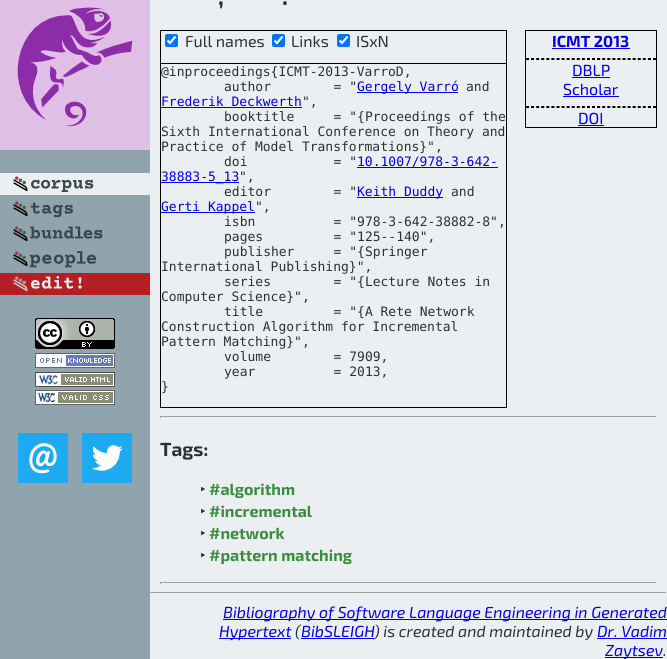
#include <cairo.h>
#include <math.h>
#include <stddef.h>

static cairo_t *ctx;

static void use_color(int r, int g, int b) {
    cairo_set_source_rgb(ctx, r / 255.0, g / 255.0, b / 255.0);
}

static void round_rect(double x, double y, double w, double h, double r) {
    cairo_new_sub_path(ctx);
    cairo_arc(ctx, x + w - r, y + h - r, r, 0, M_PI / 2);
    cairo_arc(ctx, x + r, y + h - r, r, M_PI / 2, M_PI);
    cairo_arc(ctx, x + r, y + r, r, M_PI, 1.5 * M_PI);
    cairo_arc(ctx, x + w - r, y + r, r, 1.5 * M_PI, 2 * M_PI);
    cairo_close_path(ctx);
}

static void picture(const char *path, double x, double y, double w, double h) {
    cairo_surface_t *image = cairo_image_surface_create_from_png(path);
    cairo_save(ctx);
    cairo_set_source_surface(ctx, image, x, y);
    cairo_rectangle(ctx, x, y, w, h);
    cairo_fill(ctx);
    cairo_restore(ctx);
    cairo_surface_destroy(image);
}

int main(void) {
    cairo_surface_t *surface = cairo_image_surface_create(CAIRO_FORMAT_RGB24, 667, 659);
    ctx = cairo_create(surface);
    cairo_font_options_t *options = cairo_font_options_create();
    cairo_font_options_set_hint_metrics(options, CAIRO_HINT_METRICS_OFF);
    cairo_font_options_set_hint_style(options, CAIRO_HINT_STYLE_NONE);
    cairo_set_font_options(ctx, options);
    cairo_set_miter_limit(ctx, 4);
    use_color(236, 239, 241);
    cairo_paint(ctx);
    use_color(144, 164, 174);
    cairo_rectangle(ctx, 0, 150, 150, 509);
    cairo_fill(ctx);
    picture("img1.png", 0, 0, 150, 150);
    picture("img2.png", 0, 173, 150, 22);
    picture("img3.png", 13, 201, 60, 17);
    picture("img4.png", 13, 226, 90, 16);
    picture("img5.png", 13, 251, 84, 17);
    picture("img6.png", 0, 273, 150, 22);
    picture("img7.png", 35, 318, 80, 31);
    picture("img8.png", 35, 353, 80, 15);
    picture("img9.png", 35, 372, 80, 15);
    picture("img10.png", 35, 390, 80, 15);
    picture("img11.png", 18, 433, 50, 50);
    picture("img12.png", 82, 433, 50, 50);
    cairo_select_font_face(ctx, "Exo 2", CAIRO_FONT_SLANT_NORMAL, CAIRO_FONT_WEIGHT_BOLD);
    cairo_set_font_size(ctx, 24);
    use_color(38, 50, 56);
    cairo_move_to(ctx, 218, 5);
    cairo_show_text(ctx, ",");
    cairo_move_to(ctx, 282, 5);
    cairo_show_text(ctx, ".");
    cairo_rectangle(ctx, 160.5, 30.5, 346, 377);
    use_color(0, 0, 0);
    cairo_set_line_width(ctx, 1);
    cairo_stroke(ctx);
    use_color(0, 117, 255);
    round_rect(165, 34, 13, 13, 2);
    cairo_fill(ctx);
    cairo_new_path(ctx);
    cairo_move_to(ctx, 167.5, 40.5);
    cairo_line_to(ctx, 170, 43);
    cairo_line_to(ctx, 175.5, 36.5);
    use_color(255, 255, 255);
    cairo_set_line_width(ctx, 2.1);
    cairo_stroke(ctx);
    cairo_select_font_face(ctx, "Exo 2", CAIRO_FONT_SLANT_NORMAL, CAIRO_FONT_WEIGHT_NORMAL);
    cairo_set_font_size(ctx, 16);
    use_color(38, 50, 56);
    cairo_move_to(ctx, 185, 47);
    cairo_show_text(ctx, "Full names");
    use_color(0, 117, 255);
    round_rect(272, 34, 13, 13, 2);
    cairo_fill(ctx);
    cairo_new_path(ctx);
    cairo_move_to(ctx, 274.5, 40.5);
    cairo_line_to(ctx, 277, 43);
    cairo_line_to(ctx, 282.5, 36.5);
    use_color(255, 255, 255);
    cairo_stroke(ctx);
    use_color(38, 50, 56);
    cairo_move_to(ctx, 291, 47);
    cairo_show_text(ctx, "Links");
    use_color(0, 117, 255);
    round_rect(337, 34, 13, 13, 2);
    cairo_fill(ctx);
    cairo_new_path(ctx);
    cairo_move_to(ctx, 339.5, 40.5);
    cairo_line_to(ctx, 342, 43);
    cairo_line_to(ctx, 347.5, 36.5);
    use_color(255, 255, 255);
    cairo_stroke(ctx);
    use_color(38, 50, 56);
    cairo_move_to(ctx, 356, 47);
    cairo_show_text(ctx, "ISxN");
    use_color(0, 0, 0);
    cairo_rectangle(ctx, 161, 63, 345, 1);
    cairo_fill(ctx);
    cairo_select_font_face(ctx, "DejaVu Sans Mono", CAIRO_FONT_SLANT_NORMAL, CAIRO_FONT_WEIGHT_NORMAL);
    cairo_set_font_size(ctx, 13);
    use_color(38, 50, 56);
    cairo_move_to(ctx, 161, 76);
    cairo_show_text(ctx, "@inproceedings{ICMT-2013-VarroD,");
    cairo_move_to(ctx, 224, 91);
    cairo_show_text(ctx, "author        = \"");
    use_color(0, 0, 238);
    cairo_rectangle(ctx, 357, 92, 101, 1);
    cairo_fill(ctx);
    cairo_move_to(ctx, 357, 91);
    cairo_show_text(ctx, "Gergely Varró");
    use_color(38, 50, 56);
    cairo_move_to(ctx, 466, 91);
    cairo_show_text(ctx, "and");
    use_color(0, 0, 238);
    cairo_move_to(ctx, 161, 106);
    cairo_show_text(ctx, "Frederik Deckwerth");
    cairo_rectangle(ctx, 161, 107, 141, 1);
    cairo_fill(ctx);
    use_color(38, 50, 56);
    cairo_move_to(ctx, 302, 106);
    cairo_show_text(ctx, "\",");
    cairo_move_to(ctx, 224, 121);
    cairo_show_text(ctx, "booktitle     = \"{Proceedings of the");
    cairo_move_to(ctx, 161, 136);
    cairo_show_text(ctx, "Sixth International Conference on Theory and");
    cairo_move_to(ctx, 161, 151);
    cairo_show_text(ctx, "Practice of Model Transformations}\",");
    cairo_move_to(ctx, 224, 166);
    cairo_show_text(ctx, "doi           = \"");
    use_color(0, 0, 238);
    cairo_rectangle(ctx, 357, 167, 141, 1);
    cairo_fill(ctx);
    cairo_move_to(ctx, 357, 166);
    cairo_show_text(ctx, "10.1007/978-3-642-");
    cairo_rectangle(ctx, 161, 182, 78, 1);
    cairo_fill(ctx);
    cairo_move_to(ctx, 161, 181);
    cairo_show_text(ctx, "38883-5_13");
    use_color(38, 50, 56);
    cairo_move_to(ctx, 239, 181);
    cairo_show_text(ctx, "\",");
    cairo_move_to(ctx, 224, 196);
    cairo_show_text(ctx, "editor        = \"");
    use_color(0, 0, 238);
    cairo_rectangle(ctx, 357, 197, 86, 1);
    cairo_fill(ctx);
    cairo_move_to(ctx, 357, 196);
    cairo_show_text(ctx, "Keith Duddy");
    use_color(38, 50, 56);
    cairo_move_to(ctx, 451, 196);
    cairo_show_text(ctx, "and");
    use_color(0, 0, 238);
    cairo_rectangle(ctx, 161, 212, 94, 1);
    cairo_fill(ctx);
    cairo_move_to(ctx, 161, 211);
    cairo_show_text(ctx, "Gerti Kappel");
    use_color(38, 50, 56);
    cairo_move_to(ctx, 255, 211);
    cairo_show_text(ctx, "\",");
    cairo_move_to(ctx, 224, 226);
    cairo_show_text(ctx, "isbn          = \"978-3-642-38882-8\",");
    cairo_move_to(ctx, 224, 241);
    cairo_show_text(ctx, "pages         = \"125--140\",");
    cairo_move_to(ctx, 224, 256);
    cairo_show_text(ctx, "publisher     = \"{Springer");
    cairo_move_to(ctx, 161, 271);
    cairo_show_text(ctx, "International Publishing}\",");
    cairo_move_to(ctx, 224, 286);
    cairo_show_text(ctx, "series        = \"{Lecture Notes in");
    cairo_move_to(ctx, 161, 301);
    cairo_show_text(ctx, "Computer Science}\",");
    cairo_move_to(ctx, 224, 316);
    cairo_show_text(ctx, "title         = \"{A Rete Network");
    cairo_move_to(ctx, 161, 331);
    cairo_show_text(ctx, "Construction Algorithm for Incremental");
    cairo_move_to(ctx, 161, 346);
    cairo_show_text(ctx, "Pattern Matching}\",");
    cairo_move_to(ctx, 224, 361);
    cairo_show_text(ctx, "volume        = 7909,");
    cairo_move_to(ctx, 224, 376);
    cairo_show_text(ctx, "year          = 2013,");
    cairo_move_to(ctx, 161, 391);
    cairo_show_text(ctx, "}");
    cairo_rectangle(ctx, 525.5, 30.5, 131, 97);
    use_color(0, 0, 0);
    cairo_set_line_width(ctx, 1);
    cairo_stroke(ctx);
    cairo_select_font_face(ctx, "Exo 2", CAIRO_FONT_SLANT_NORMAL, CAIRO_FONT_WEIGHT_BOLD);
    cairo_set_font_size(ctx, 16);
    use_color(0, 0, 238);
    cairo_move_to(ctx, 552, 47);
    cairo_show_text(ctx, "ICMT 2013");
    cairo_rectangle(ctx, 552, 48, 78, 1);
    cairo_fill(ctx);
    cairo_new_path(ctx);
    cairo_move_to(ctx, 526, 58.5);
    cairo_line_to(ctx, 656, 58.5);
    use_color(0, 0, 0);
    cairo_set_dash(ctx, (double[]){3, 2.08}, 2, 0);
    cairo_stroke(ctx);
    cairo_rectangle(ctx, 655, 58, 1, 2);
    cairo_fill(ctx);
    cairo_new_path(ctx);
    cairo_move_to(ctx, 526, 59.5);
    cairo_line_to(ctx, 656, 59.5);
    cairo_stroke(ctx);
    cairo_select_font_face(ctx, "Exo 2", CAIRO_FONT_SLANT_NORMAL, CAIRO_FONT_WEIGHT_NORMAL);
    use_color(0, 0, 238);
    cairo_move_to(ctx, 572, 76);
    cairo_show_text(ctx, "DBLP");
    cairo_rectangle(ctx, 572, 77, 38, 1);
    cairo_fill(ctx);
    cairo_move_to(ctx, 563, 95);
    cairo_show_text(ctx, "Scholar");
    cairo_rectangle(ctx, 563, 96, 56, 1);
    cairo_fill(ctx);
    cairo_new_path(ctx);
    cairo_move_to(ctx, 526, 106.5);
    cairo_line_to(ctx, 656, 106.5);
    use_color(0, 0, 0);
    cairo_stroke(ctx);
    cairo_rectangle(ctx, 655, 106, 1, 2);
    cairo_fill(ctx);
    cairo_new_path(ctx);
    cairo_move_to(ctx, 526, 107.5);
    cairo_line_to(ctx, 656, 107.5);
    cairo_stroke(ctx);
    use_color(0, 0, 238);
    cairo_move_to(ctx, 578, 124);
    cairo_show_text(ctx, "DOI");
    cairo_rectangle(ctx, 578, 125, 26, 1);
    cairo_fill(ctx);
    use_color(159, 159, 159);
    cairo_rectangle(ctx, 160, 416, 497, 1);
    cairo_fill(ctx);
    use_color(238, 238, 238);
    cairo_rectangle(ctx, 656, 416, 1, 2);
    cairo_fill(ctx);
    cairo_rectangle(ctx, 160, 417, 497, 1);
    cairo_fill(ctx);
    use_color(159, 159, 159);
    cairo_rectangle(ctx, 160, 416, 1, 2);
    cairo_fill(ctx);
    cairo_select_font_face(ctx, "Exo 2", CAIRO_FONT_SLANT_NORMAL, CAIRO_FONT_WEIGHT_BOLD);
    cairo_set_font_size(ctx, 19);
    use_color(38, 50, 56);
    cairo_move_to(ctx, 160, 456);
    cairo_show_text(ctx, "Tags:");
    cairo_select_font_face(ctx, "Noto Sans", CAIRO_FONT_SLANT_NORMAL, CAIRO_FONT_WEIGHT_NORMAL);
    cairo_set_font_size(ctx, 16);
    cairo_move_to(ctx, 200, 495);
    cairo_show_text(ctx, "‣");
    cairo_select_font_face(ctx, "Exo 2", CAIRO_FONT_SLANT_NORMAL, CAIRO_FONT_WEIGHT_BOLD);
    use_color(56, 142, 60);
    cairo_move_to(ctx, 209, 495);
    cairo_show_text(ctx, "#algorithm");
    cairo_select_font_face(ctx, "Noto Sans", CAIRO_FONT_SLANT_NORMAL, CAIRO_FONT_WEIGHT_NORMAL);
    use_color(38, 50, 56);
    cairo_move_to(ctx, 200, 517);
    cairo_show_text(ctx, "‣");
    cairo_select_font_face(ctx, "Exo 2", CAIRO_FONT_SLANT_NORMAL, CAIRO_FONT_WEIGHT_BOLD);
    use_color(56, 142, 60);
    cairo_move_to(ctx, 209, 517);
    cairo_show_text(ctx, "#incremental");
    cairo_select_font_face(ctx, "Noto Sans", CAIRO_FONT_SLANT_NORMAL, CAIRO_FONT_WEIGHT_NORMAL);
    use_color(38, 50, 56);
    cairo_move_to(ctx, 200, 539);
    cairo_show_text(ctx, "‣");
    cairo_select_font_face(ctx, "Exo 2", CAIRO_FONT_SLANT_NORMAL, CAIRO_FONT_WEIGHT_BOLD);
    use_color(56, 142, 60);
    cairo_move_to(ctx, 209, 539);
    cairo_show_text(ctx, "#network");
    cairo_select_font_face(ctx, "Noto Sans", CAIRO_FONT_SLANT_NORMAL, CAIRO_FONT_WEIGHT_NORMAL);
    use_color(38, 50, 56);
    cairo_move_to(ctx, 200, 561);
    cairo_show_text(ctx, "‣");
    cairo_select_font_face(ctx, "Exo 2", CAIRO_FONT_SLANT_NORMAL, CAIRO_FONT_WEIGHT_BOLD);
    use_color(56, 142, 60);
    cairo_move_to(ctx, 209, 561);
    cairo_show_text(ctx, "#pattern matching");
    use_color(159, 159, 159);
    cairo_rectangle(ctx, 160, 582, 497, 1);
    cairo_fill(ctx);
    use_color(238, 238, 238);
    cairo_rectangle(ctx, 656, 582, 1, 2);
    cairo_fill(ctx);
    cairo_rectangle(ctx, 160, 583, 497, 1);
    cairo_fill(ctx);
    use_color(159, 159, 159);
    cairo_rectangle(ctx, 160, 582, 1, 2);
    cairo_fill(ctx);
    cairo_rectangle(ctx, 150, 592, 517, 1);
    cairo_fill(ctx);
    use_color(238, 238, 238);
    cairo_rectangle(ctx, 666, 592, 1, 2);
    cairo_fill(ctx);
    cairo_rectangle(ctx, 150, 593, 517, 1);
    cairo_fill(ctx);
    use_color(0, 0, 238);
    cairo_rectangle(ctx, 223, 619, 444, 1);
    cairo_fill(ctx);
    cairo_select_font_face(ctx, "Exo 2", CAIRO_FONT_SLANT_ITALIC, CAIRO_FONT_WEIGHT_NORMAL);
    cairo_move_to(ctx, 223, 618);
    cairo_show_text(ctx, "Bibliography of Software Language Engineering in Generated");
    cairo_rectangle(ctx, 219, 638, 72, 1);
    cairo_fill(ctx);
    cairo_move_to(ctx, 219, 637);
    cairo_show_text(ctx, "Hypertext");
    use_color(38, 50, 56);
    cairo_move_to(ctx, 295, 637);
    cairo_show_text(ctx, "(");
    use_color(0, 0, 238);
    cairo_move_to(ctx, 301, 637);
    cairo_show_text(ctx, "BibSLEIGH");
    cairo_rectangle(ctx, 301, 638, 73, 1);
    cairo_fill(ctx);
    use_color(38, 50, 56);
    cairo_move_to(ctx, 374, 637);
    cairo_show_text(ctx, ") is created and maintained by");
    use_color(0, 0, 238);
    cairo_move_to(ctx, 597, 637);
    cairo_show_text(ctx, "Dr. Vadim");
    cairo_rectangle(ctx, 597, 638, 70, 1);
    cairo_fill(ctx);
    cairo_rectangle(ctx, 605, 657, 58, 1);
    cairo_fill(ctx);
    cairo_move_to(ctx, 605, 656);
    cairo_show_text(ctx, "Zaytsev");
    use_color(38, 50, 56);
    cairo_move_to(ctx, 663, 656);
    cairo_show_text(ctx, ".");
    cairo_surface_write_to_png(surface, "result.png");
    cairo_font_options_destroy(options);
    cairo_destroy(ctx);
    cairo_surface_destroy(surface);
    return 0;
}
